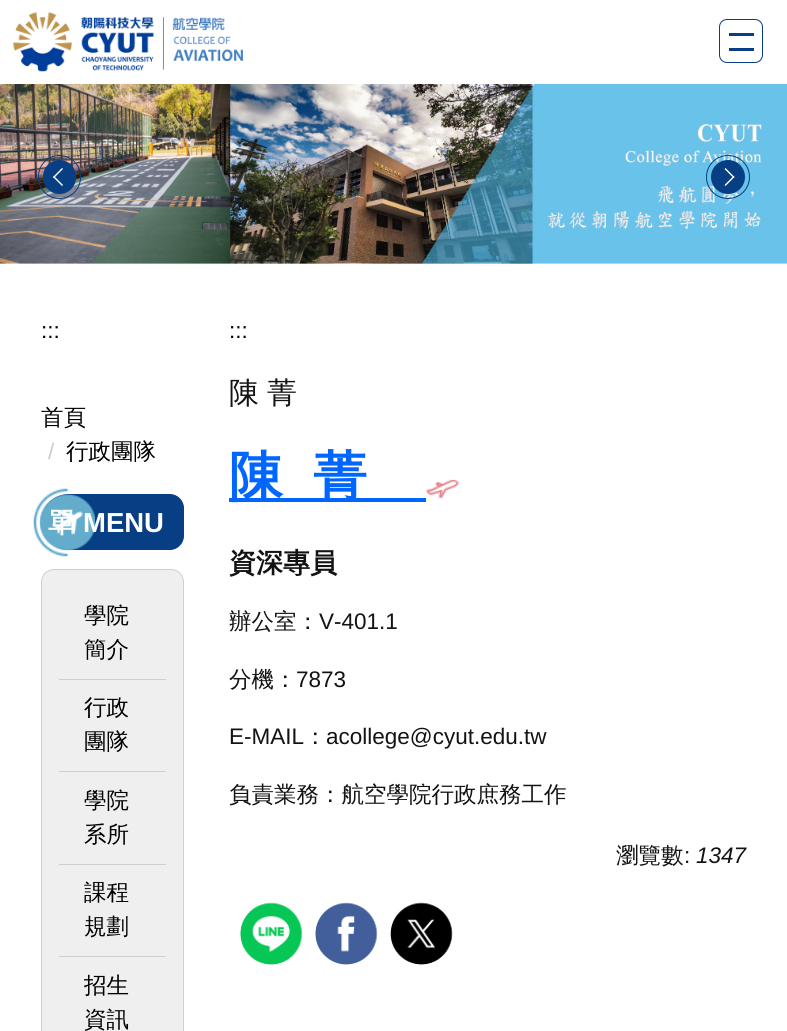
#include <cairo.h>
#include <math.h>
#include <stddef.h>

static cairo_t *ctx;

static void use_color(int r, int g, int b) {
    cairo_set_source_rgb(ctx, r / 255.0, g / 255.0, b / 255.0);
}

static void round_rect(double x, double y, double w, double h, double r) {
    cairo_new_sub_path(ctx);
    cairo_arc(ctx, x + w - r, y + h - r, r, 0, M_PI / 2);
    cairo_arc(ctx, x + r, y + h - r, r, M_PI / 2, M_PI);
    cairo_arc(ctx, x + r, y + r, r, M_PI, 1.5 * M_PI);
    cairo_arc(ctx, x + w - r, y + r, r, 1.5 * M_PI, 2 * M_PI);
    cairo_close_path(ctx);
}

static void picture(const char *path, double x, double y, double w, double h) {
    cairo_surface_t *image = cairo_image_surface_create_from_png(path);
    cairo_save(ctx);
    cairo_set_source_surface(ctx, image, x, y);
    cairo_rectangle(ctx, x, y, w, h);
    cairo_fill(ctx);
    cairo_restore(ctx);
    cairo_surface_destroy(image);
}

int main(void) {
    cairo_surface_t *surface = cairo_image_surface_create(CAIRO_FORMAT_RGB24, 787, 1031);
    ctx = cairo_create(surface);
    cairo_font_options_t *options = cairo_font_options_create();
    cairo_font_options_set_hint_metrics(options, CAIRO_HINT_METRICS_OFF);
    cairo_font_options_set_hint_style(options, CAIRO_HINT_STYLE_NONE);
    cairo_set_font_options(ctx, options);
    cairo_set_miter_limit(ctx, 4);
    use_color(255, 255, 255);
    cairo_paint(ctx);
    picture("img1.png", 13, 12, 230, 60);
    round_rect(719.5, 19.5, 43, 43, 7.5);
    use_color(8, 62, 132);
    cairo_set_line_width(ctx, 1);
    cairo_stroke(ctx);
    cairo_rectangle(ctx, 729, 33, 25, 3);
    cairo_fill(ctx);
    cairo_rectangle(ctx, 729, 48, 25, 3);
    cairo_fill(ctx);
    picture("img2.png", 0, 84, 787, 180);
    round_rect(38.5, 155.5, 42, 43, 21);
    cairo_stroke(ctx);
    round_rect(43, 160, 33, 34, 16.5);
    cairo_fill(ctx);
    use_color(255, 255, 255);
    cairo_new_path(ctx);
    cairo_move_to(ctx, 62, 186);
    cairo_line_to(ctx, 53, 177);
    cairo_line_to(ctx, 54, 176);
    cairo_line_to(ctx, 63, 185);
    cairo_close_path(ctx);
    cairo_fill(ctx);
    cairo_new_path(ctx);
    cairo_move_to(ctx, 54, 178);
    cairo_line_to(ctx, 53, 177);
    cairo_line_to(ctx, 62, 168);
    cairo_line_to(ctx, 63, 169);
    cairo_close_path(ctx);
    cairo_fill(ctx);
    cairo_arc(ctx, 728, 177, 21.5, 0, 2 * M_PI);
    use_color(8, 62, 132);
    cairo_stroke(ctx);
    cairo_arc(ctx, 728, 177, 17, 0, 2 * M_PI);
    cairo_fill(ctx);
    use_color(255, 255, 255);
    cairo_new_path(ctx);
    cairo_move_to(ctx, 725.5, 168);
    cairo_line_to(ctx, 734.5, 177);
    cairo_line_to(ctx, 733.5, 178);
    cairo_line_to(ctx, 724.5, 169);
    cairo_close_path(ctx);
    cairo_fill(ctx);
    cairo_new_path(ctx);
    cairo_move_to(ctx, 733.5, 176);
    cairo_line_to(ctx, 734.5, 177);
    cairo_line_to(ctx, 725.5, 186);
    cairo_line_to(ctx, 724.5, 185);
    cairo_close_path(ctx);
    cairo_fill(ctx);
    cairo_select_font_face(ctx, "Liberation Sans", CAIRO_FONT_SLANT_NORMAL, CAIRO_FONT_WEIGHT_NORMAL);
    cairo_set_font_size(ctx, 22.5);
    use_color(0, 0, 0);
    cairo_move_to(ctx, 41, 338);
    cairo_show_text(ctx, ":::");
    cairo_select_font_face(ctx, "WenQuanYi Zen Hei Medium", CAIRO_FONT_SLANT_NORMAL, CAIRO_FONT_WEIGHT_NORMAL);
    cairo_move_to(ctx, 41, 425);
    cairo_show_text(ctx, "首頁");
    cairo_select_font_face(ctx, "Liberation Sans", CAIRO_FONT_SLANT_NORMAL, CAIRO_FONT_WEIGHT_NORMAL);
    use_color(204, 204, 204);
    cairo_move_to(ctx, 48, 459);
    cairo_show_text(ctx, "/");
    cairo_select_font_face(ctx, "WenQuanYi Zen Hei Medium", CAIRO_FONT_SLANT_NORMAL, CAIRO_FONT_WEIGHT_NORMAL);
    use_color(0, 0, 0);
    cairo_move_to(ctx, 66, 459);
    cairo_show_text(ctx, "行政團隊");
    use_color(8, 62, 132);
    cairo_new_path(ctx);
    cairo_move_to(ctx, 69, 494);
    cairo_line_to(ctx, 170, 494);
    cairo_curve_to(ctx, 177.5, 494, 184, 500.5, 184, 508);
    cairo_line_to(ctx, 184, 536);
    cairo_curve_to(ctx, 184, 543.5, 177.5, 550, 170, 550);
    cairo_line_to(ctx, 69, 550);
    cairo_curve_to(ctx, 53.5, 550, 41, 537.5, 41, 522);
    cairo_curve_to(ctx, 41, 506.5, 53.5, 494, 69, 494);
    cairo_close_path(ctx);
    cairo_fill(ctx);
    picture("img3.png", 33, 488, 62, 69);
    cairo_select_font_face(ctx, "WenQuanYi Zen Hei", CAIRO_FONT_SLANT_NORMAL, CAIRO_FONT_WEIGHT_BOLD);
    cairo_set_font_size(ctx, 27.5);
    use_color(255, 255, 255);
    cairo_move_to(ctx, 48, 532);
    cairo_show_text(ctx, "單");
    cairo_select_font_face(ctx, "Liberation Sans", CAIRO_FONT_SLANT_NORMAL, CAIRO_FONT_WEIGHT_BOLD);
    cairo_move_to(ctx, 83, 532);
    cairo_show_text(ctx, "MENU");
    use_color(239, 239, 239);
    round_rect(41.5, 569.5, 142, 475, 12.5);
    cairo_fill_preserve(ctx);
    use_color(207, 207, 207);
    cairo_stroke(ctx);
    cairo_rectangle(ctx, 59, 679, 107, 1);
    cairo_fill(ctx);
    cairo_select_font_face(ctx, "WenQuanYi Zen Hei Medium", CAIRO_FONT_SLANT_NORMAL, CAIRO_FONT_WEIGHT_NORMAL);
    cairo_set_font_size(ctx, 22.5);
    use_color(0, 0, 0);
    cairo_move_to(ctx, 84, 623);
    cairo_show_text(ctx, "學院");
    cairo_move_to(ctx, 84, 657);
    cairo_show_text(ctx, "簡介");
    use_color(207, 207, 207);
    cairo_rectangle(ctx, 59, 771, 107, 1);
    cairo_fill(ctx);
    use_color(0, 0, 0);
    cairo_move_to(ctx, 84, 715);
    cairo_show_text(ctx, "行政");
    cairo_move_to(ctx, 84, 749);
    cairo_show_text(ctx, "團隊");
    use_color(207, 207, 207);
    cairo_rectangle(ctx, 59, 864, 107, 1);
    cairo_fill(ctx);
    use_color(0, 0, 0);
    cairo_move_to(ctx, 84, 808);
    cairo_show_text(ctx, "學院");
    cairo_move_to(ctx, 84, 842);
    cairo_show_text(ctx, "系所");
    use_color(207, 207, 207);
    cairo_rectangle(ctx, 59, 956, 107, 1);
    cairo_fill(ctx);
    use_color(0, 0, 0);
    cairo_move_to(ctx, 84, 900);
    cairo_show_text(ctx, "課程");
    cairo_move_to(ctx, 84, 934);
    cairo_show_text(ctx, "規劃");
    cairo_move_to(ctx, 84, 993);
    cairo_show_text(ctx, "招生");
    cairo_move_to(ctx, 84, 1027);
    cairo_show_text(ctx, "資訊");
    cairo_select_font_face(ctx, "Liberation Sans", CAIRO_FONT_SLANT_NORMAL, CAIRO_FONT_WEIGHT_NORMAL);
    cairo_move_to(ctx, 229, 338);
    cairo_show_text(ctx, ":::");
    cairo_select_font_face(ctx, "WenQuanYi Zen Hei Medium", CAIRO_FONT_SLANT_NORMAL, CAIRO_FONT_WEIGHT_NORMAL);
    cairo_set_font_size(ctx, 30);
    use_color(19, 19, 19);
    cairo_move_to(ctx, 229, 403);
    cairo_show_text(ctx, "陳");
    cairo_move_to(ctx, 267, 403);
    cairo_show_text(ctx, "菁");
    use_color(0, 102, 255);
    cairo_rectangle(ctx, 229, 498, 197, 4);
    cairo_fill(ctx);
    cairo_select_font_face(ctx, "WenQuanYi Zen Hei", CAIRO_FONT_SLANT_NORMAL, CAIRO_FONT_WEIGHT_BOLD);
    cairo_set_font_size(ctx, 54);
    cairo_move_to(ctx, 229, 495);
    cairo_show_text(ctx, "陳");
    cairo_move_to(ctx, 313, 495);
    cairo_show_text(ctx, "菁");
    picture("img4.png", 426, 479, 33, 20);
    cairo_set_font_size(ctx, 27);
    use_color(19, 19, 19);
    cairo_move_to(ctx, 229, 572);
    cairo_show_text(ctx, "資深專員");
    cairo_select_font_face(ctx, "WenQuanYi Zen Hei Medium", CAIRO_FONT_SLANT_NORMAL, CAIRO_FONT_WEIGHT_NORMAL);
    cairo_set_font_size(ctx, 22.5);
    cairo_move_to(ctx, 229, 629);
    cairo_show_text(ctx, "辦公室：");
    cairo_select_font_face(ctx, "Liberation Sans", CAIRO_FONT_SLANT_NORMAL, CAIRO_FONT_WEIGHT_NORMAL);
    cairo_move_to(ctx, 319, 629);
    cairo_show_text(ctx, "V-401.1");
    cairo_select_font_face(ctx, "WenQuanYi Zen Hei Medium", CAIRO_FONT_SLANT_NORMAL, CAIRO_FONT_WEIGHT_NORMAL);
    cairo_move_to(ctx, 229, 687);
    cairo_show_text(ctx, "分機：");
    cairo_select_font_face(ctx, "Liberation Sans", CAIRO_FONT_SLANT_NORMAL, CAIRO_FONT_WEIGHT_NORMAL);
    cairo_move_to(ctx, 296, 687);
    cairo_show_text(ctx, "7873");
    cairo_move_to(ctx, 229, 744);
    cairo_show_text(ctx, "E-MAIL");
    cairo_select_font_face(ctx, "WenQuanYi Zen Hei Medium", CAIRO_FONT_SLANT_NORMAL, CAIRO_FONT_WEIGHT_NORMAL);
    cairo_move_to(ctx, 304, 744);
    cairo_show_text(ctx, "：");
    cairo_select_font_face(ctx, "Liberation Sans", CAIRO_FONT_SLANT_NORMAL, CAIRO_FONT_WEIGHT_NORMAL);
    cairo_move_to(ctx, 326, 744);
    cairo_show_text(ctx, "acollege@cyut.edu.tw");
    cairo_select_font_face(ctx, "WenQuanYi Zen Hei Medium", CAIRO_FONT_SLANT_NORMAL, CAIRO_FONT_WEIGHT_NORMAL);
    cairo_move_to(ctx, 229, 802);
    cairo_show_text(ctx, "負責業務：航空學院行政庶務工作");
    cairo_move_to(ctx, 616, 863);
    cairo_show_text(ctx, "瀏覽數");
    cairo_select_font_face(ctx, "Liberation Sans", CAIRO_FONT_SLANT_NORMAL, CAIRO_FONT_WEIGHT_NORMAL);
    cairo_move_to(ctx, 684, 863);
    cairo_show_text(ctx, ":");
    cairo_select_font_face(ctx, "Liberation Sans", CAIRO_FONT_SLANT_ITALIC, CAIRO_FONT_WEIGHT_NORMAL);
    cairo_move_to(ctx, 696, 863);
    cairo_show_text(ctx, "1347");
    picture("img5.png", 240, 902, 63, 63);
    picture("img6.png", 315, 902, 63, 63);
    picture("img7.png", 390, 902, 63, 63);
    cairo_surface_write_to_png(surface, "result.png");
    cairo_font_options_destroy(options);
    cairo_destroy(ctx);
    cairo_surface_destroy(surface);
    return 0;
}
